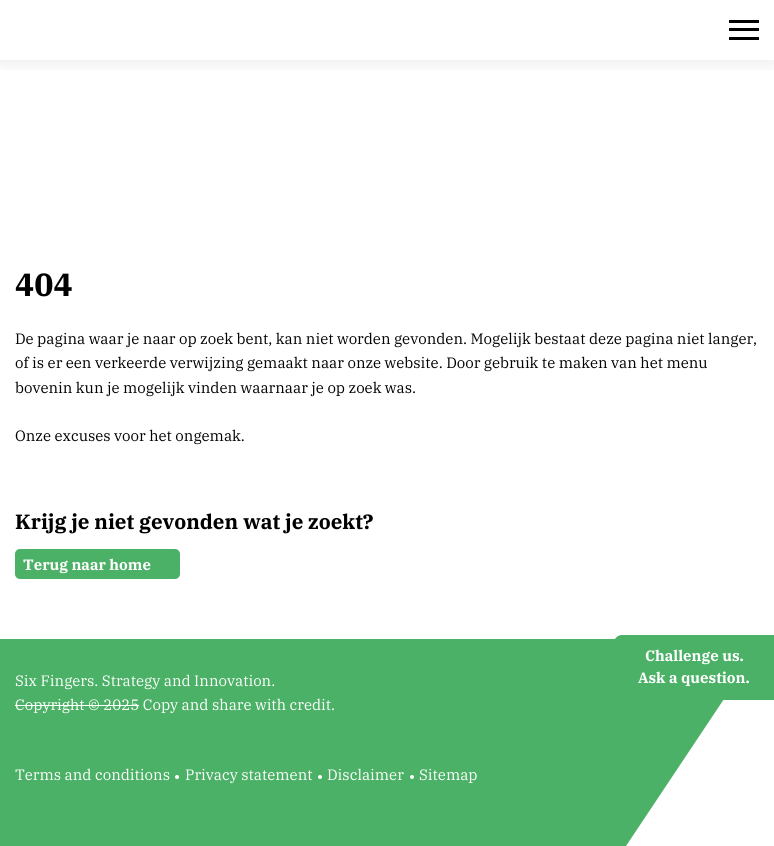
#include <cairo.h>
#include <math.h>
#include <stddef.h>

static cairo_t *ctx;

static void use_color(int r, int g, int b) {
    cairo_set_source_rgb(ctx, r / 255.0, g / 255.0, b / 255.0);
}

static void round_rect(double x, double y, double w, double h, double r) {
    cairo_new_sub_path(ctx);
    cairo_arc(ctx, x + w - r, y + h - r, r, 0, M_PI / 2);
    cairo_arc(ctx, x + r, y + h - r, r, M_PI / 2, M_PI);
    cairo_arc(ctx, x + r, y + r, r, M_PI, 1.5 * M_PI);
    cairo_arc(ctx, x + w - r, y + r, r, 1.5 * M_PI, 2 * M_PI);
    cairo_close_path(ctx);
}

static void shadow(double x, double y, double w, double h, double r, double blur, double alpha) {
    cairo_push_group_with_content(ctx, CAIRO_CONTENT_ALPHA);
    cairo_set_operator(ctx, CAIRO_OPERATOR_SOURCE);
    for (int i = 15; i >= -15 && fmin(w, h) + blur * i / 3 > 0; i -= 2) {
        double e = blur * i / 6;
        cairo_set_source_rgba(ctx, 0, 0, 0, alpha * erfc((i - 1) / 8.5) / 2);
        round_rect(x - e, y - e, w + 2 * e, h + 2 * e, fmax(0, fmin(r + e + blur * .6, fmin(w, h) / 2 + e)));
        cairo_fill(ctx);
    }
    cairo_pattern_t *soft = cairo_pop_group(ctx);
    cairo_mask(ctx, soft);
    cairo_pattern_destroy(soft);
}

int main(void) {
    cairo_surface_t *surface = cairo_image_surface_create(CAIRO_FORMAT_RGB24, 774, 846);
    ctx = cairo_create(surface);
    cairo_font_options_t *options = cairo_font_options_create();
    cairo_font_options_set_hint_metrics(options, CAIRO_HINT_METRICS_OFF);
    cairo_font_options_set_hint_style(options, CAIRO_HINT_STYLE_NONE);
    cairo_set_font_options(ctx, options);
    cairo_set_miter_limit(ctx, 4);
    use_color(255, 255, 255);
    cairo_paint(ctx);
    cairo_save(ctx);
    cairo_rectangle(ctx, 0, 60, 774, 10);
    cairo_clip(ctx);
    use_color(0, 0, 0);
    shadow(0, 0, 774, 60, 0, 12, 0.1);
    cairo_restore(ctx);
    use_color(0, 0, 0);
    cairo_rectangle(ctx, 729, 20, 30, 3);
    cairo_fill(ctx);
    cairo_rectangle(ctx, 729, 28, 30, 3);
    cairo_fill(ctx);
    cairo_rectangle(ctx, 729, 37, 30, 3);
    cairo_fill(ctx);
    cairo_select_font_face(ctx, "IBM Plex Serif", CAIRO_FONT_SLANT_NORMAL, CAIRO_FONT_WEIGHT_BOLD);
    cairo_set_font_size(ctx, 32);
    cairo_move_to(ctx, 15, 296);
    cairo_show_text(ctx, "404");
    cairo_select_font_face(ctx, "IBM Plex Serif", CAIRO_FONT_SLANT_NORMAL, CAIRO_FONT_WEIGHT_NORMAL);
    cairo_set_font_size(ctx, 15);
    cairo_move_to(ctx, 15, 344);
    cairo_show_text(ctx, "De pagina waar je naar op zoek bent, kan niet worden gevonden. Mogelijk bestaat deze pagina niet langer,");
    cairo_move_to(ctx, 15, 368);
    cairo_show_text(ctx, "of is er een verkeerde verwijzing gemaakt naar onze website. Door gebruik te maken van het menu");
    cairo_move_to(ctx, 15, 393);
    cairo_show_text(ctx, "bovenin kun je mogelijk vinden waarnaar je op zoek was.");
    cairo_move_to(ctx, 15, 441);
    cairo_show_text(ctx, "Onze excuses voor het ongemak.");
    cairo_select_font_face(ctx, "IBM Plex Serif", CAIRO_FONT_SLANT_NORMAL, CAIRO_FONT_WEIGHT_BOLD);
    cairo_set_font_size(ctx, 20.6);
    cairo_move_to(ctx, 15, 529);
    cairo_show_text(ctx, "Krijg je niet gevonden wat je zoekt?");
    use_color(75, 177, 102);
    round_rect(15, 549, 165, 30, 5);
    cairo_fill(ctx);
    cairo_set_font_size(ctx, 15);
    use_color(255, 255, 255);
    cairo_move_to(ctx, 23, 570);
    cairo_show_text(ctx, "Terug naar home");
    use_color(75, 177, 102);
    cairo_rectangle(ctx, 0, 639, 724, 207);
    cairo_fill(ctx);
    use_color(255, 255, 255);
    cairo_new_path(ctx);
    cairo_move_to(ctx, 750, 660);
    cairo_line_to(ctx, 550, 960);
    cairo_line_to(ctx, 750, 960);
    cairo_close_path(ctx);
    cairo_fill(ctx);
    use_color(75, 177, 102);
    cairo_new_path(ctx);
    cairo_move_to(ctx, 622, 635);
    cairo_line_to(ctx, 774, 635);
    cairo_line_to(ctx, 774, 700);
    cairo_line_to(ctx, 622, 700);
    cairo_curve_to(ctx, 617.5, 700, 614, 696.5, 614, 692);
    cairo_line_to(ctx, 614, 643);
    cairo_curve_to(ctx, 614, 638.5, 617.5, 635, 622, 635);
    cairo_close_path(ctx);
    cairo_fill(ctx);
    use_color(255, 255, 255);
    cairo_move_to(ctx, 645, 661);
    cairo_show_text(ctx, "Challenge us.");
    cairo_move_to(ctx, 638, 683);
    cairo_show_text(ctx, "Ask a question.");
    cairo_select_font_face(ctx, "IBM Plex Serif", CAIRO_FONT_SLANT_NORMAL, CAIRO_FONT_WEIGHT_NORMAL);
    cairo_move_to(ctx, 15, 686);
    cairo_show_text(ctx, "Six Fingers. Strategy and Innovation.");
    cairo_move_to(ctx, 15, 710);
    cairo_show_text(ctx, "Copyright © 2025 Copy and share with credit.");
    cairo_rectangle(ctx, 15, 705, 124, 1);
    cairo_fill(ctx);
    cairo_move_to(ctx, 15, 780);
    cairo_show_text(ctx, "Terms and conditions");
    cairo_new_path(ctx);
    cairo_arc(ctx, 177, 777, 2, 0, 2 * M_PI);
    cairo_fill(ctx);
    cairo_move_to(ctx, 185, 780);
    cairo_show_text(ctx, "Privacy statement");
    cairo_new_path(ctx);
    cairo_arc(ctx, 320, 777, 2, 0, 2 * M_PI);
    cairo_fill(ctx);
    cairo_move_to(ctx, 327, 780);
    cairo_show_text(ctx, "Disclaimer");
    cairo_new_path(ctx);
    cairo_arc(ctx, 412, 777, 2, 0, 2 * M_PI);
    cairo_fill(ctx);
    cairo_move_to(ctx, 419, 780);
    cairo_show_text(ctx, "Sitemap");
    cairo_surface_write_to_png(surface, "result.png");
    cairo_font_options_destroy(options);
    cairo_destroy(ctx);
    cairo_surface_destroy(surface);
    return 0;
}
